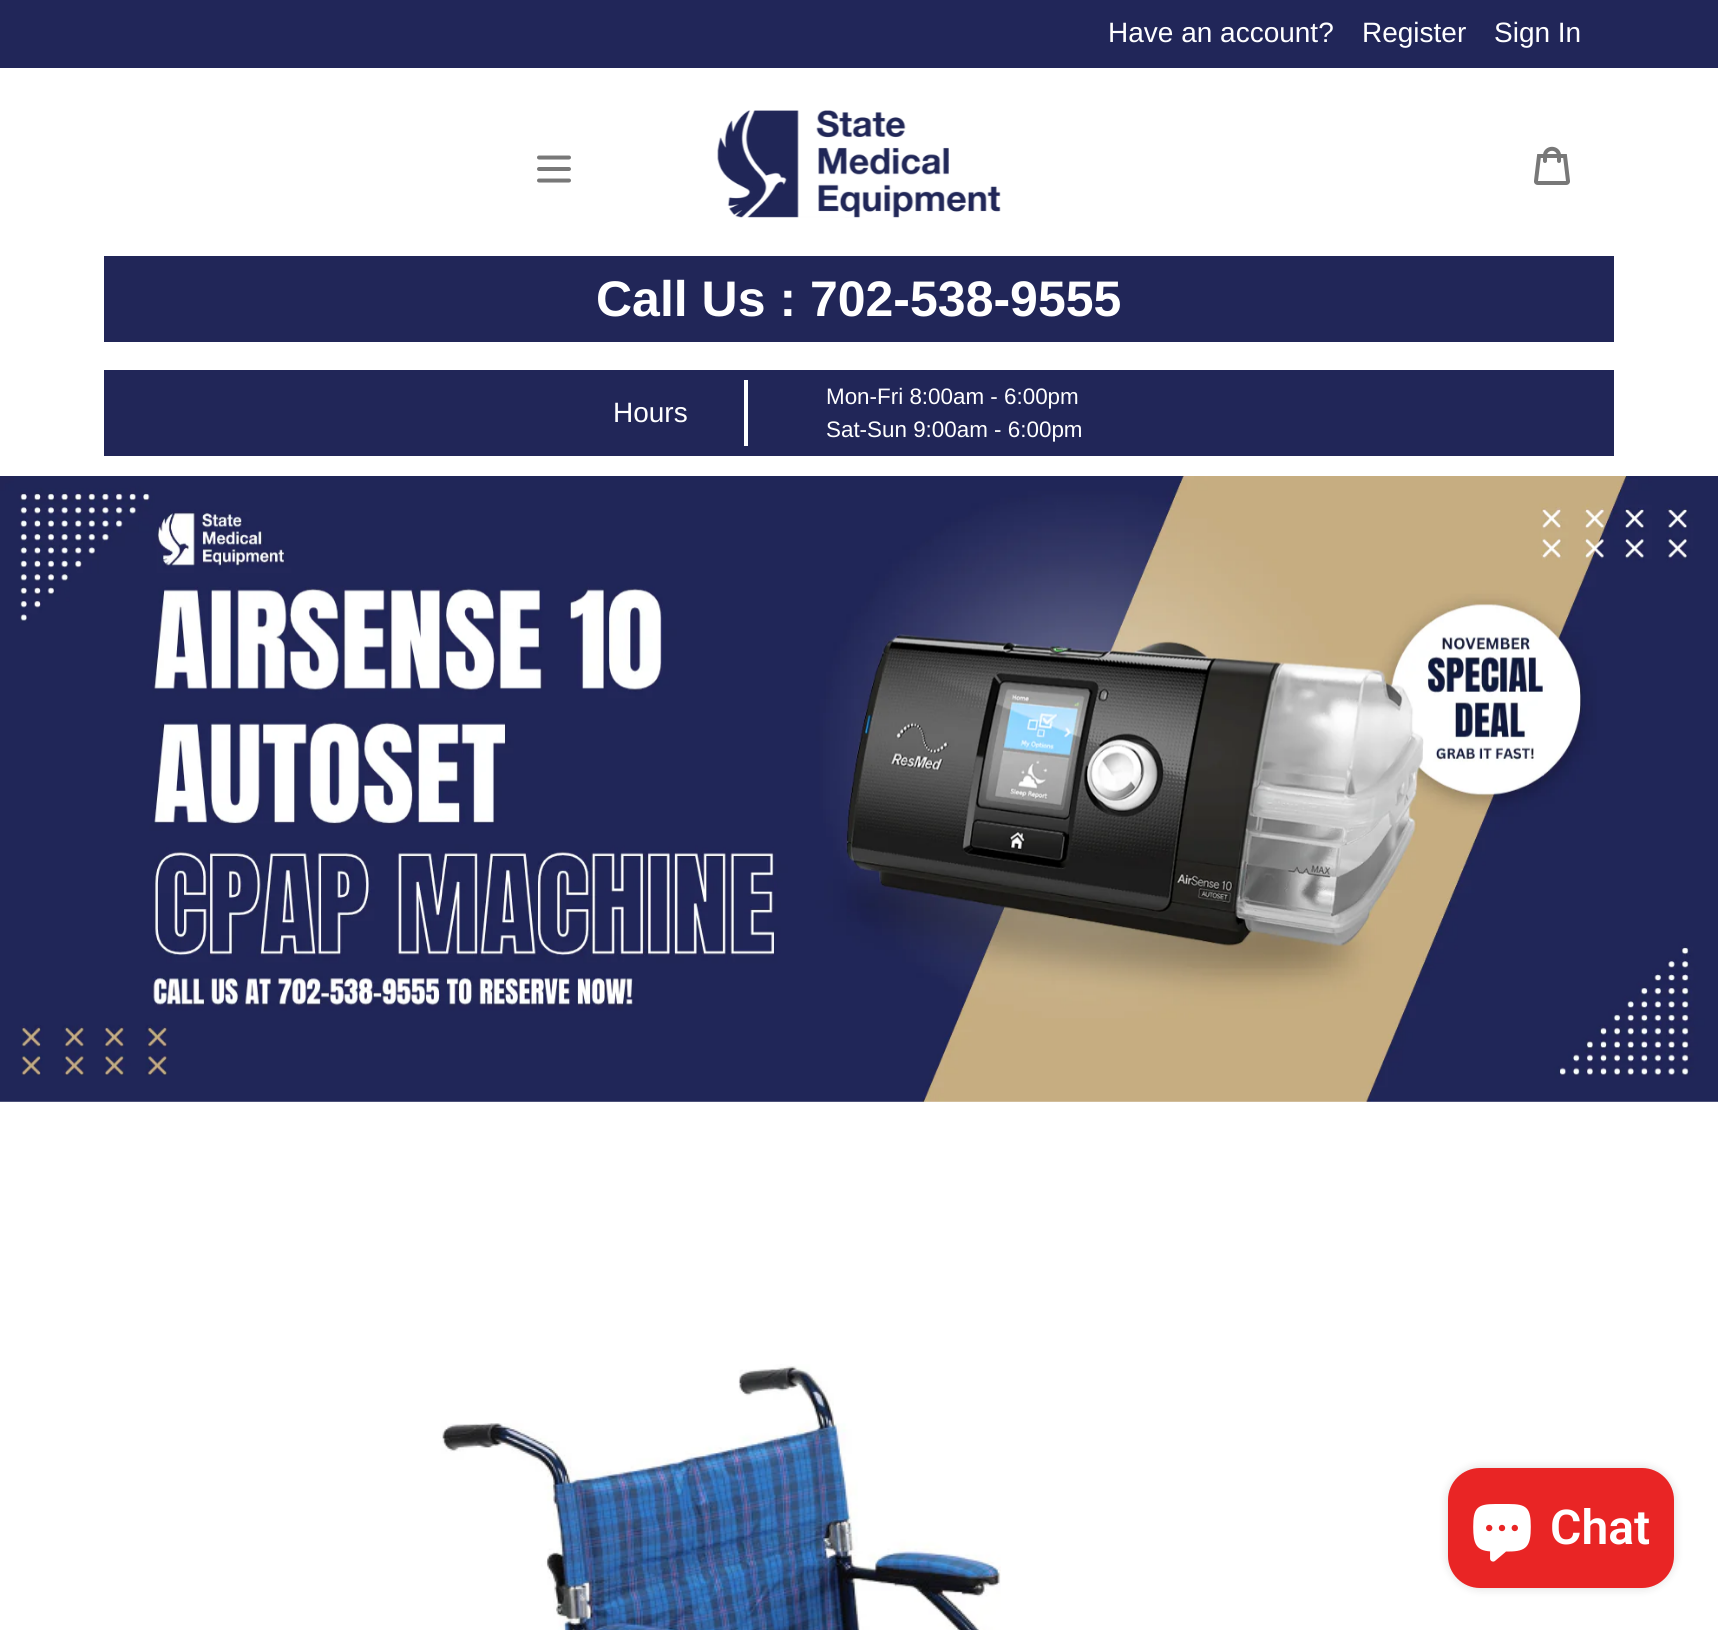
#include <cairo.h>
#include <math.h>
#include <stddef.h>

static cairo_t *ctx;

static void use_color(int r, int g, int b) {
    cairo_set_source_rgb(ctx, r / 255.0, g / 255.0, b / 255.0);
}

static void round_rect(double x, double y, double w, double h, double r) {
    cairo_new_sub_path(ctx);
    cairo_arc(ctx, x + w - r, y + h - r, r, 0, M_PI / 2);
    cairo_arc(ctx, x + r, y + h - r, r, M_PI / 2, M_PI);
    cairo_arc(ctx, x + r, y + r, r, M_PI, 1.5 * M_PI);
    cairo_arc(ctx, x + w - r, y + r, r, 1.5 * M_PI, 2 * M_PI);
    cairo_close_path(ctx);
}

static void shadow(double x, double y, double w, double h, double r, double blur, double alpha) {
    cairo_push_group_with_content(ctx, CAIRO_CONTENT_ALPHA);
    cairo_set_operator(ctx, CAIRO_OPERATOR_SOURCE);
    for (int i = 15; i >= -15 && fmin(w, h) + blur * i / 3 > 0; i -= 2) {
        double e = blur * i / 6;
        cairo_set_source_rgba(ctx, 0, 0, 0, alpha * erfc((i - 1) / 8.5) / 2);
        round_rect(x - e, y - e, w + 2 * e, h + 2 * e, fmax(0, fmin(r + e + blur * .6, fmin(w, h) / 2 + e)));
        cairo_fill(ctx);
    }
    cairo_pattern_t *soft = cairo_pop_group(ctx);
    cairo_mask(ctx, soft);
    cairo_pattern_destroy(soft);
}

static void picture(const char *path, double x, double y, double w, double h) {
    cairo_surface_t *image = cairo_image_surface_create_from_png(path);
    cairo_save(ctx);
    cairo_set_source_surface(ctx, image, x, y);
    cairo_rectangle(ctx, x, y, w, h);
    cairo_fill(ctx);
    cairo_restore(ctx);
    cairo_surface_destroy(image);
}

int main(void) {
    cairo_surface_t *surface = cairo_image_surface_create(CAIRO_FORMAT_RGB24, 1718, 1630);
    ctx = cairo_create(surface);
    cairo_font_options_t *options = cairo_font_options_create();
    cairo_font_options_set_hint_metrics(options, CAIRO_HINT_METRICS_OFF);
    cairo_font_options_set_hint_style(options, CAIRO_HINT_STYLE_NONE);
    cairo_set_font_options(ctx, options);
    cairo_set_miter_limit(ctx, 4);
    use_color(255, 255, 255);
    cairo_paint(ctx);
    use_color(33, 38, 89);
    cairo_rectangle(ctx, 0, 0, 1718, 68);
    cairo_fill(ctx);
    cairo_select_font_face(ctx, "Liberation Sans", CAIRO_FONT_SLANT_NORMAL, CAIRO_FONT_WEIGHT_NORMAL);
    cairo_set_font_size(ctx, 28);
    use_color(255, 255, 255);
    cairo_move_to(ctx, 1108, 42);
    cairo_show_text(ctx, "Have an account?");
    cairo_move_to(ctx, 1362, 42);
    cairo_show_text(ctx, "Register");
    cairo_move_to(ctx, 1494, 42);
    cairo_show_text(ctx, "Sign In");
    picture("img1.png", 537, 155, 34, 28);
    picture("img2.png", 717, 110, 284, 108);
    picture("img3.png", 1534, 146, 36, 39);
    use_color(33, 38, 88);
    cairo_rectangle(ctx, 104, 256, 1510, 86);
    cairo_fill(ctx);
    cairo_select_font_face(ctx, "Liberation Sans", CAIRO_FONT_SLANT_NORMAL, CAIRO_FONT_WEIGHT_BOLD);
    cairo_set_font_size(ctx, 50);
    use_color(255, 255, 255);
    cairo_move_to(ctx, 596, 316);
    cairo_show_text(ctx, "Call Us : 702-538-9555");
    use_color(33, 38, 88);
    cairo_rectangle(ctx, 104, 370, 1510, 86);
    cairo_fill(ctx);
    cairo_select_font_face(ctx, "Liberation Sans", CAIRO_FONT_SLANT_NORMAL, CAIRO_FONT_WEIGHT_NORMAL);
    cairo_set_font_size(ctx, 28);
    use_color(255, 255, 255);
    cairo_move_to(ctx, 613, 422);
    cairo_show_text(ctx, "Hours");
    cairo_rectangle(ctx, 744, 380, 4, 66);
    cairo_fill(ctx);
    cairo_set_font_size(ctx, 22.4);
    cairo_move_to(ctx, 826, 404);
    cairo_show_text(ctx, "Mon-Fri 8:00am - 6:00pm");
    cairo_move_to(ctx, 826, 437);
    cairo_show_text(ctx, "Sat-Sun 9:00am - 6:00pm");
    picture("img4.png", 0, 476, 1718, 626);
    picture("img5.png", 440, 1364, 561, 266);
    use_color(0, 0, 0);
    shadow(1448, 1468, 226, 120, 32, 5, 0.15);
    use_color(233, 37, 37);
    round_rect(1448, 1468, 226, 120, 32);
    cairo_fill(ctx);
    picture("img6.png", 1473, 1504, 58, 58);
    cairo_select_font_face(ctx, "Roboto SemiBold", CAIRO_FONT_SLANT_NORMAL, CAIRO_FONT_WEIGHT_NORMAL);
    cairo_set_font_size(ctx, 48);
    use_color(255, 255, 255);
    cairo_move_to(ctx, 1550, 1544);
    cairo_show_text(ctx, "Chat");
    cairo_surface_write_to_png(surface, "result.png");
    cairo_font_options_destroy(options);
    cairo_destroy(ctx);
    cairo_surface_destroy(surface);
    return 0;
}
